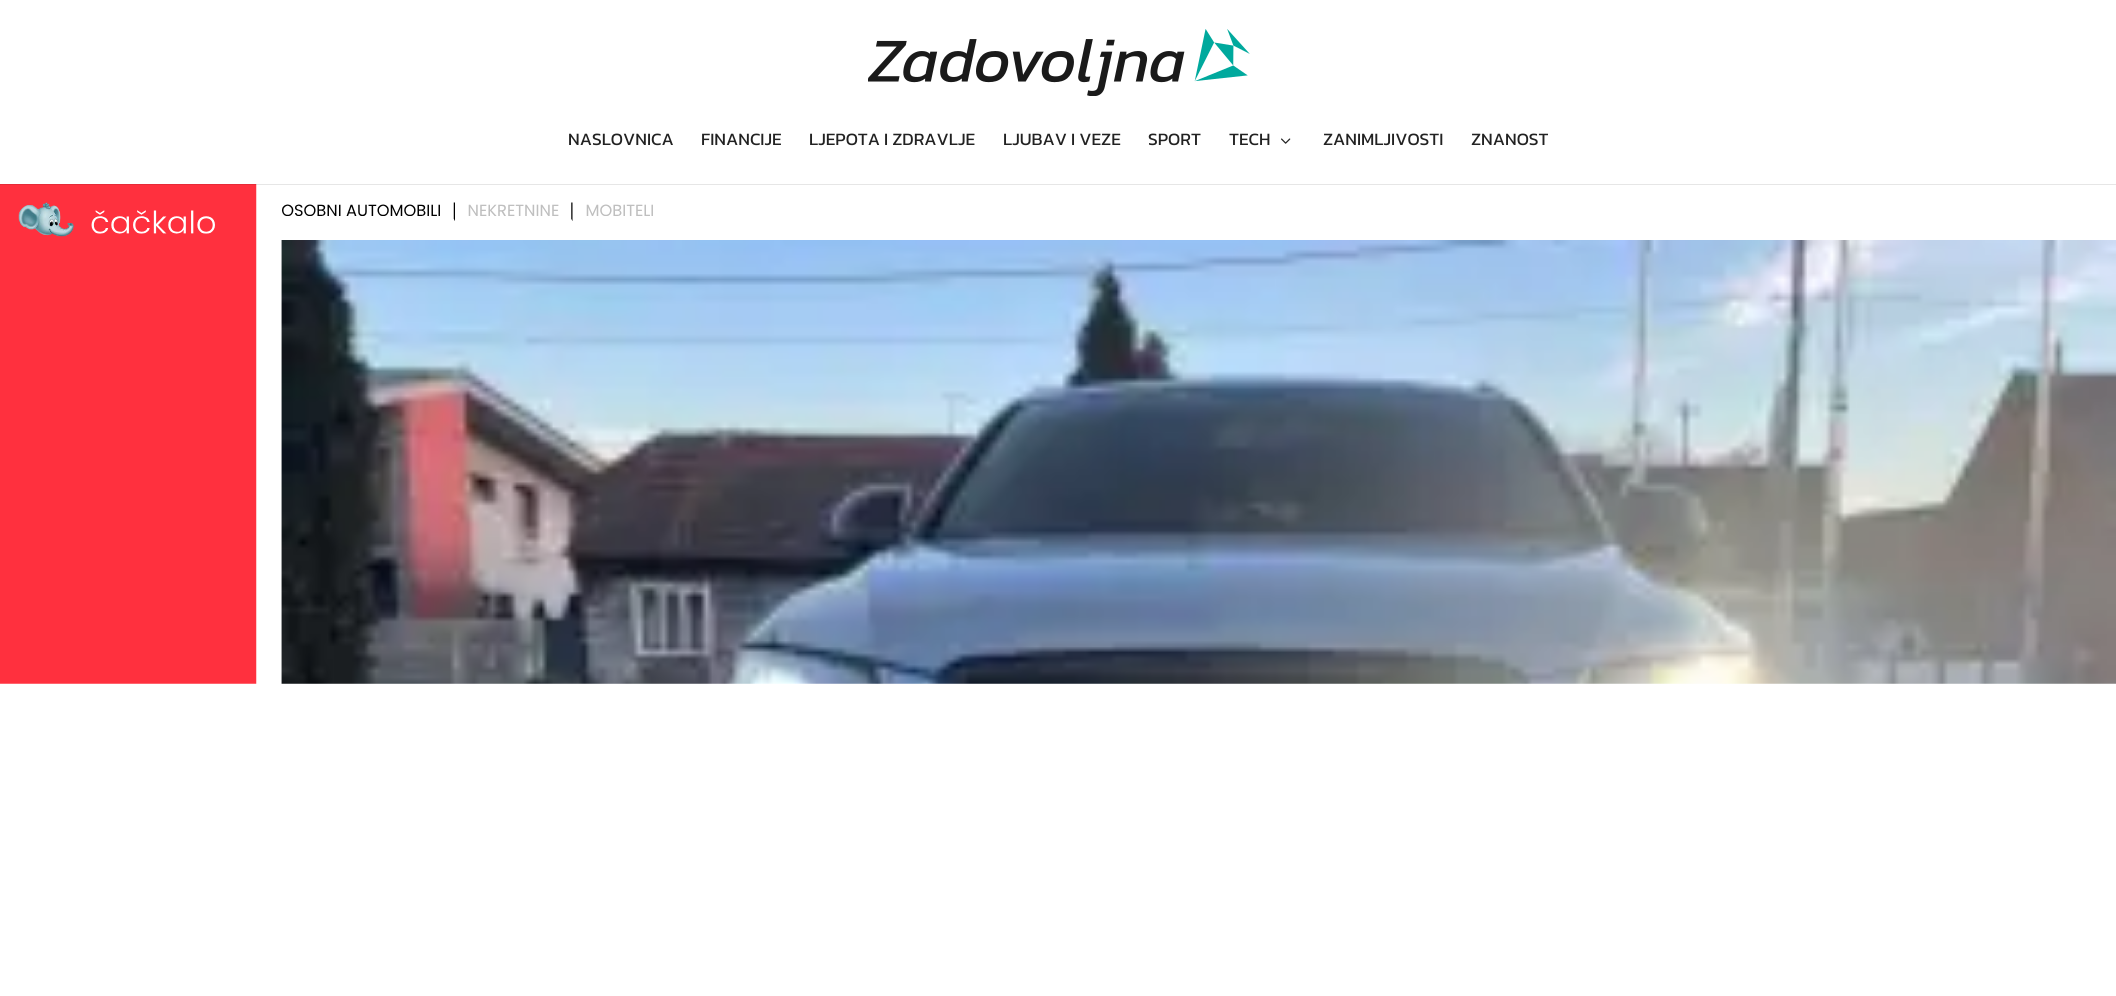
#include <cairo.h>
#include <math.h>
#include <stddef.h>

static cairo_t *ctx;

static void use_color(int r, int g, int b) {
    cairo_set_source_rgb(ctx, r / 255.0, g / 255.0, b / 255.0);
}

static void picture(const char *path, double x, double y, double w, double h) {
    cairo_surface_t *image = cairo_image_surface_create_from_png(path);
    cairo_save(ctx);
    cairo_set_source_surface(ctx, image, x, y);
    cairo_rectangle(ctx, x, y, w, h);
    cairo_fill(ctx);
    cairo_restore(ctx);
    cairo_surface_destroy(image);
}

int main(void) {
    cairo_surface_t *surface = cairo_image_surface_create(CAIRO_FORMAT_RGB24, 2116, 996);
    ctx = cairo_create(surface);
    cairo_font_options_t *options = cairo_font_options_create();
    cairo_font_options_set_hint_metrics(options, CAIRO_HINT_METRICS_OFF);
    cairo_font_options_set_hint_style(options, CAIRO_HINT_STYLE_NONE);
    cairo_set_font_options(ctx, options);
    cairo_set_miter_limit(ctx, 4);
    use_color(255, 255, 255);
    cairo_paint(ctx);
    picture("img3.png", 0, 184, 2116, 500);
    cairo_set_source_rgba(ctx, 0, 0, 0, 0.1);
    cairo_rectangle(ctx, 0, 184, 2116, 1);
    cairo_fill(ctx);
    picture("img1.png", 868, 29, 382, 67);
    cairo_select_font_face(ctx, "Kanit", CAIRO_FONT_SLANT_NORMAL, CAIRO_FONT_WEIGHT_NORMAL);
    cairo_set_font_size(ctx, 17.5);
    use_color(34, 34, 34);
    cairo_move_to(ctx, 568, 145);
    cairo_show_text(ctx, "NASLOVNICA");
    cairo_move_to(ctx, 701, 145);
    cairo_show_text(ctx, "FINANCIJE");
    cairo_move_to(ctx, 809, 145);
    cairo_show_text(ctx, "LJEPOTA I ZDRAVLJE");
    cairo_move_to(ctx, 1003, 145);
    cairo_show_text(ctx, "LJUBAV I VEZE");
    cairo_move_to(ctx, 1148, 145);
    cairo_show_text(ctx, "SPORT");
    cairo_move_to(ctx, 1229, 145);
    cairo_show_text(ctx, "TECH");
    picture("img2.png", 1281, 138, 10, 6);
    cairo_move_to(ctx, 1323, 145);
    cairo_show_text(ctx, "ZANIMLJIVOSTI");
    cairo_move_to(ctx, 1471, 145);
    cairo_show_text(ctx, "ZNANOST");
    cairo_surface_write_to_png(surface, "result.png");
    cairo_font_options_destroy(options);
    cairo_destroy(ctx);
    cairo_surface_destroy(surface);
    return 0;
}
